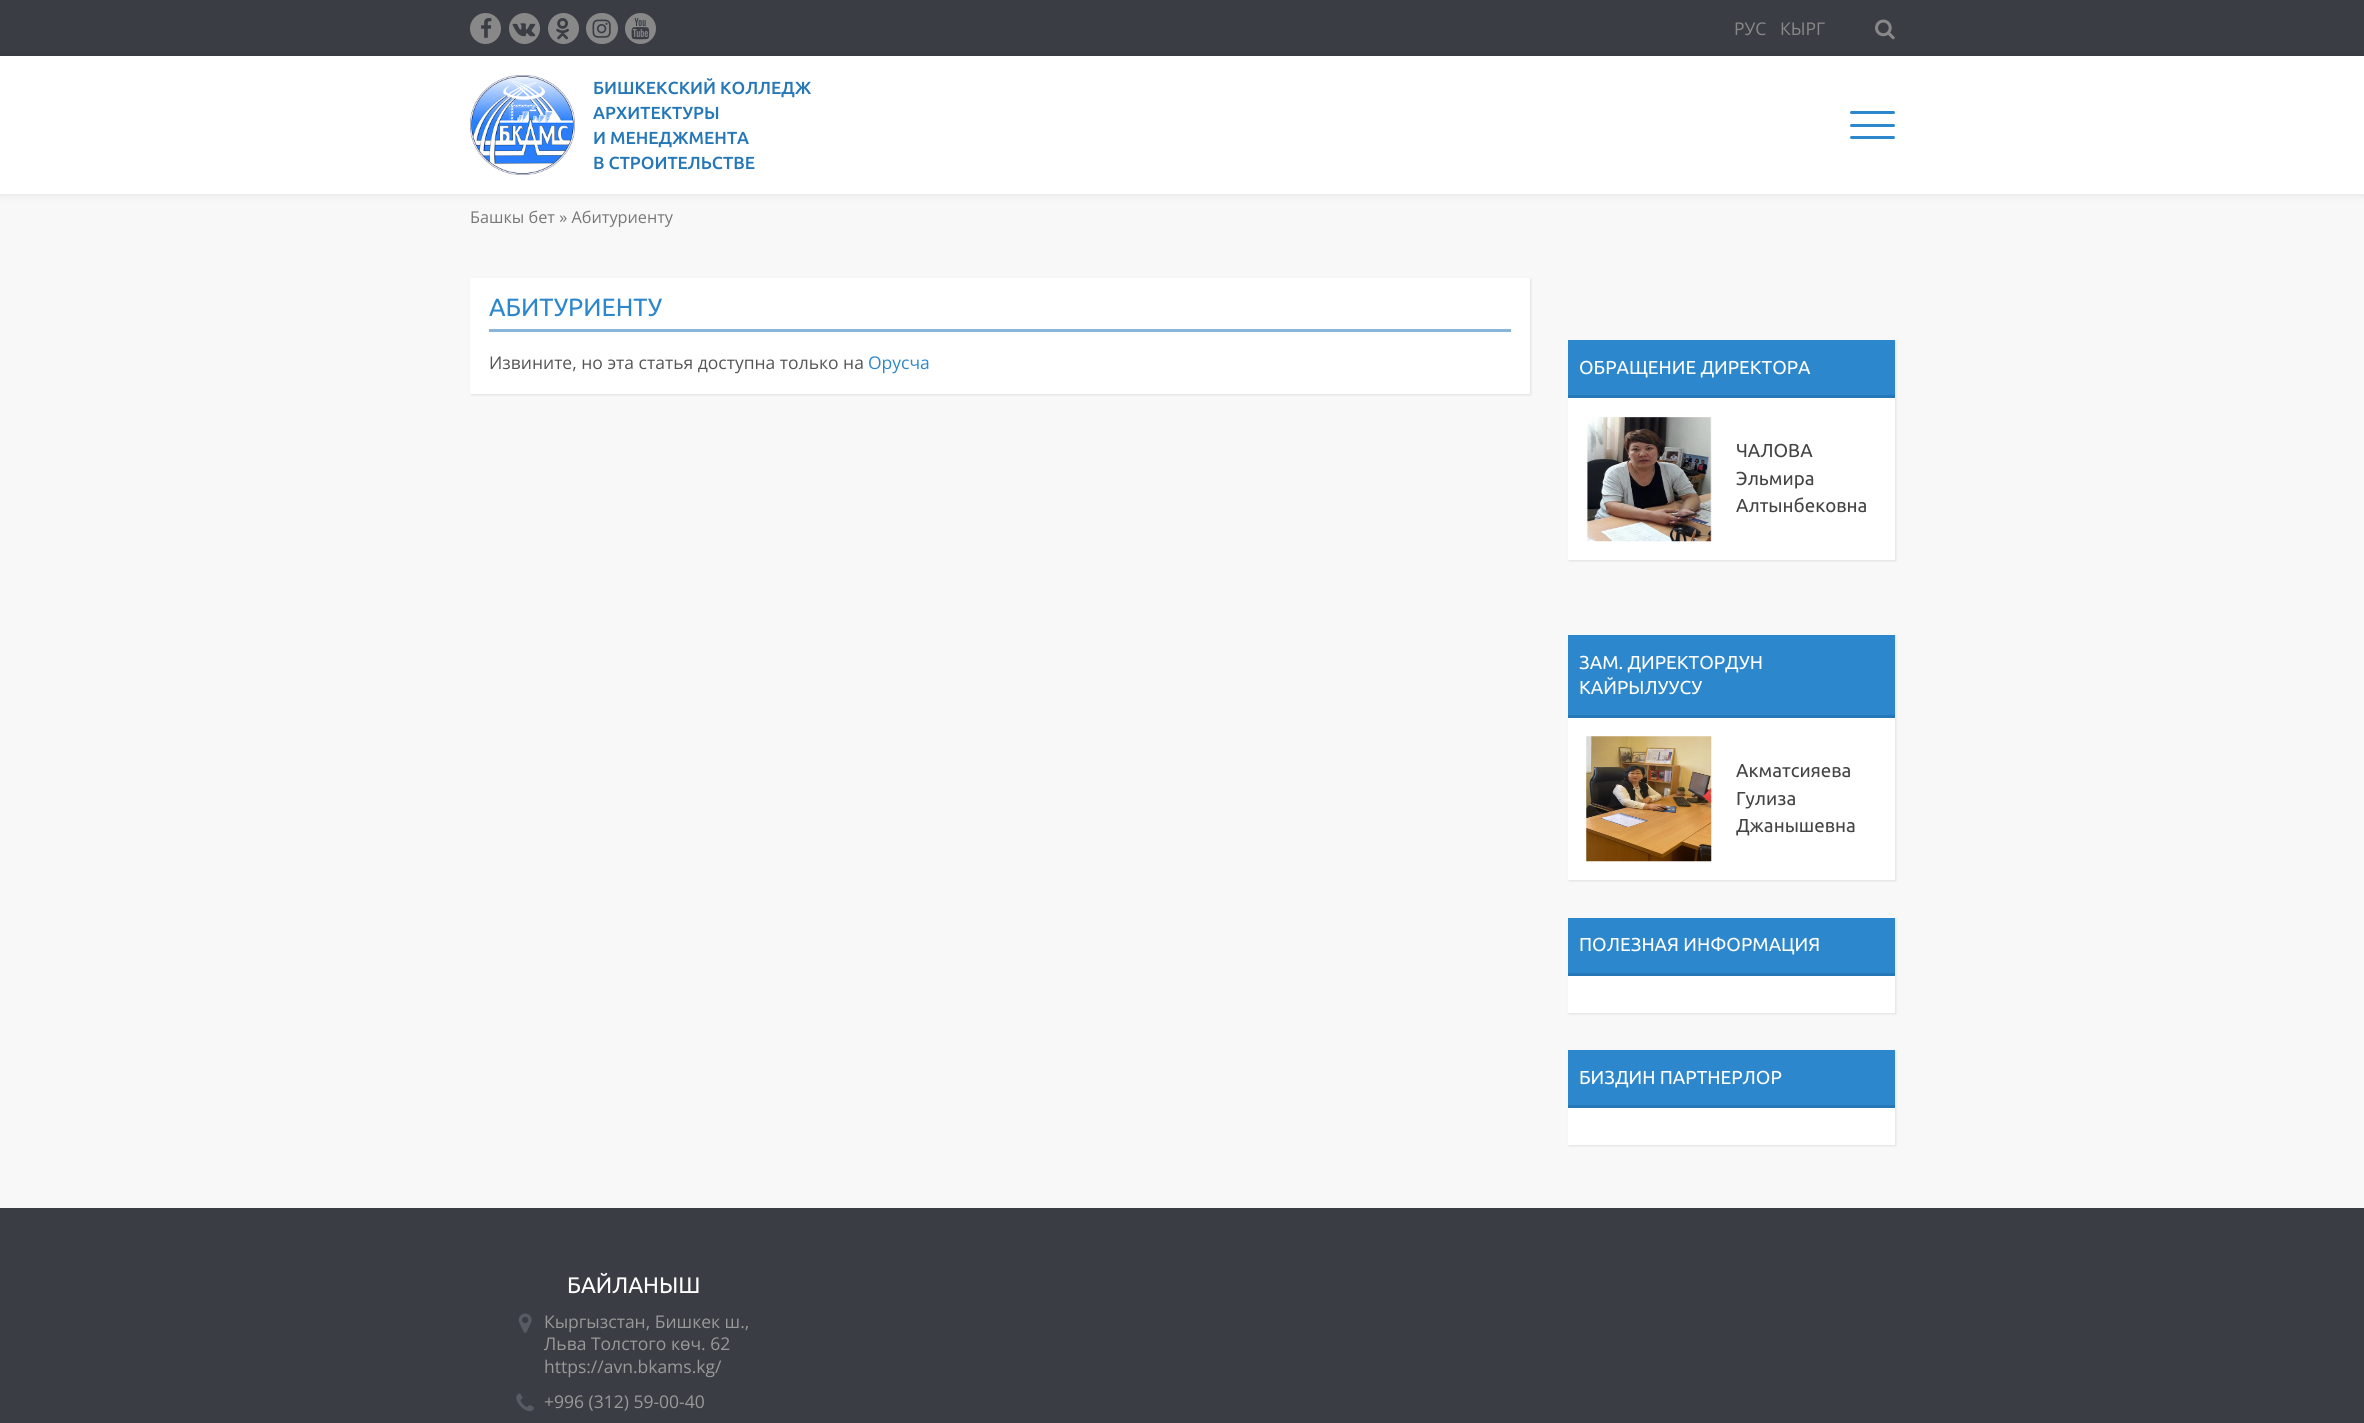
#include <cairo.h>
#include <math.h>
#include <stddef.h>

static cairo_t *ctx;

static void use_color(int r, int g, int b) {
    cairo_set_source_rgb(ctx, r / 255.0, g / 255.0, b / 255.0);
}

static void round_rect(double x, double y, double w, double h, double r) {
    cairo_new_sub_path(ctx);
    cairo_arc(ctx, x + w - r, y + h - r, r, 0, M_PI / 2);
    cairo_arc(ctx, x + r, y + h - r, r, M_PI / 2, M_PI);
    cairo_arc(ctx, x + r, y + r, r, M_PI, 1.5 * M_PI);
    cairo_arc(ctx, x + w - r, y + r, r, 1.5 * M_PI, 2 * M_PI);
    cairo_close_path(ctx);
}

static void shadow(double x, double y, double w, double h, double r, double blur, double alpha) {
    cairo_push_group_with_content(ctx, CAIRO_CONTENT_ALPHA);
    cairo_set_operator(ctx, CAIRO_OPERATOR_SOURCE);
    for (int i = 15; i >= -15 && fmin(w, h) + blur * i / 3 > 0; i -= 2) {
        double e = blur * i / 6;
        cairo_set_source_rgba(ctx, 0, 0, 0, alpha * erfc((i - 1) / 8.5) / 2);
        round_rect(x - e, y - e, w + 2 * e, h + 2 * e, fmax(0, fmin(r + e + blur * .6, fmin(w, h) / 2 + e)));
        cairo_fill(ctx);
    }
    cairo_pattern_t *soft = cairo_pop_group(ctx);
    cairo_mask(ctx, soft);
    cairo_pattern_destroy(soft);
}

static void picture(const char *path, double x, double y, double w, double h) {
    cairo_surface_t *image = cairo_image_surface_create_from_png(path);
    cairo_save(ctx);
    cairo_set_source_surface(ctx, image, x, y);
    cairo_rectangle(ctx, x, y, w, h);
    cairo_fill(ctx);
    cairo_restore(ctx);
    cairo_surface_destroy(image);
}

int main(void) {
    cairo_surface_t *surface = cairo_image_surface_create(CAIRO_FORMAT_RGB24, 2364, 1423);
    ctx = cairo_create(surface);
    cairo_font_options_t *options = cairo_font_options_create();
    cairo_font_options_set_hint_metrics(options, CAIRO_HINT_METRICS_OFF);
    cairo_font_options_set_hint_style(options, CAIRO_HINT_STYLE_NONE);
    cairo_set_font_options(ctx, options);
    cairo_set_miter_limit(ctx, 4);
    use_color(248, 248, 248);
    cairo_paint(ctx);
    use_color(58, 61, 68);
    cairo_rectangle(ctx, 0, 0, 2364, 56);
    cairo_fill(ctx);
    use_color(0, 0, 0);
    shadow(0, 56, 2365, 138, 0, 4.5, 0.1);
    use_color(136, 136, 136);
    cairo_arc(ctx, 485.5, 28.5, 15.5, 0, 2 * M_PI);
    cairo_fill(ctx);
    picture("img1.png", 481, 18, 11, 20);
    cairo_arc(ctx, 524.5, 28.5, 15.5, 0, 2 * M_PI);
    cairo_fill(ctx);
    picture("img2.png", 512, 23, 24, 14);
    cairo_arc(ctx, 563.5, 28.5, 15.5, 0, 2 * M_PI);
    cairo_fill(ctx);
    picture("img3.png", 556, 18, 13, 22);
    round_rect(586, 13, 32, 31, 15.5);
    cairo_fill(ctx);
    picture("img4.png", 592, 19, 19, 19);
    cairo_arc(ctx, 640.5, 28.5, 15.5, 0, 2 * M_PI);
    cairo_fill(ctx);
    picture("img5.png", 631, 18, 19, 22);
    cairo_select_font_face(ctx, "Open Sans", CAIRO_FONT_SLANT_NORMAL, CAIRO_FONT_WEIGHT_NORMAL);
    cairo_set_font_size(ctx, 17.5);
    cairo_move_to(ctx, 1734, 35);
    cairo_show_text(ctx, "РУС");
    cairo_move_to(ctx, 1780, 35);
    cairo_show_text(ctx, "КЫРГ");
    picture("img6.png", 1875, 19, 20, 21);
    use_color(255, 255, 255);
    cairo_rectangle(ctx, 0, 56, 2364, 138);
    cairo_fill(ctx);
    picture("img7.png", 470, 75, 105, 100);
    cairo_select_font_face(ctx, "Ubuntu Medium", CAIRO_FONT_SLANT_NORMAL, CAIRO_FONT_WEIGHT_NORMAL);
    use_color(37, 119, 183);
    cairo_move_to(ctx, 593, 94);
    cairo_show_text(ctx, "БИШКЕКСКИЙ КОЛЛЕДЖ");
    cairo_move_to(ctx, 593, 119);
    cairo_show_text(ctx, "АРХИТЕКТУРЫ");
    cairo_move_to(ctx, 593, 144);
    cairo_show_text(ctx, "И МЕНЕДЖМЕНТА");
    cairo_move_to(ctx, 593, 169);
    cairo_show_text(ctx, "В СТРОИТЕЛЬСТВЕ");
    use_color(45, 135, 204);
    round_rect(1850, 111, 45, 3, 1.5);
    cairo_fill(ctx);
    round_rect(1850, 124, 45, 3, 1.5);
    cairo_fill(ctx);
    round_rect(1850, 136, 45, 3, 1.5);
    cairo_fill(ctx);
    cairo_select_font_face(ctx, "Open Sans", CAIRO_FONT_SLANT_NORMAL, CAIRO_FONT_WEIGHT_NORMAL);
    cairo_set_font_size(ctx, 16.25);
    use_color(119, 119, 119);
    cairo_move_to(ctx, 470, 223);
    cairo_show_text(ctx, "Башкы бет » Абитуриенту");
    use_color(90, 90, 90);
    shadow(471, 279, 1060, 116, 0, 1, 0.15);
    use_color(255, 255, 255);
    cairo_rectangle(ctx, 470, 278, 1060, 116);
    cairo_fill(ctx);
    use_color(136, 181, 216);
    cairo_rectangle(ctx, 489, 329, 1022, 3);
    cairo_fill(ctx);
    cairo_select_font_face(ctx, "Ubuntu", CAIRO_FONT_SLANT_NORMAL, CAIRO_FONT_WEIGHT_NORMAL);
    cairo_set_font_size(ctx, 25);
    use_color(45, 135, 204);
    cairo_move_to(ctx, 489, 316);
    cairo_show_text(ctx, "АБИТУРИЕНТУ");
    cairo_select_font_face(ctx, "Open Sans", CAIRO_FONT_SLANT_NORMAL, CAIRO_FONT_WEIGHT_NORMAL);
    cairo_set_font_size(ctx, 17.5);
    use_color(85, 85, 85);
    cairo_move_to(ctx, 489, 369);
    cairo_show_text(ctx, "Извините, но эта статья доступна только на");
    use_color(45, 135, 204);
    cairo_move_to(ctx, 868, 369);
    cairo_show_text(ctx, "Орусча");
    use_color(90, 90, 90);
    shadow(1569, 341, 327, 220, 0, 1, 0.15);
    use_color(255, 255, 255);
    cairo_rectangle(ctx, 1568, 398, 327, 162);
    cairo_fill(ctx);
    use_color(45, 135, 204);
    cairo_rectangle(ctx, 1568, 340, 327, 55);
    cairo_fill(ctx);
    use_color(37, 119, 183);
    cairo_rectangle(ctx, 1568, 395, 327, 3);
    cairo_fill(ctx);
    cairo_select_font_face(ctx, "Ubuntu", CAIRO_FONT_SLANT_NORMAL, CAIRO_FONT_WEIGHT_NORMAL);
    cairo_set_font_size(ctx, 18.75);
    use_color(255, 255, 255);
    cairo_move_to(ctx, 1579, 374);
    cairo_show_text(ctx, "ОБРАЩЕНИЕ ДИРЕКТОРА");
    picture("img8.png", 1586, 417, 126, 125);
    use_color(68, 68, 68);
    cairo_move_to(ctx, 1736, 457);
    cairo_show_text(ctx, "ЧАЛОВА");
    cairo_move_to(ctx, 1736, 485);
    cairo_show_text(ctx, "Эльмира");
    cairo_move_to(ctx, 1736, 512);
    cairo_show_text(ctx, "Алтынбековна");
    use_color(90, 90, 90);
    shadow(1569, 636, 327, 245, 0, 1, 0.15);
    use_color(255, 255, 255);
    cairo_rectangle(ctx, 1568, 718, 327, 162);
    cairo_fill(ctx);
    use_color(45, 135, 204);
    cairo_rectangle(ctx, 1568, 635, 327, 80);
    cairo_fill(ctx);
    use_color(37, 119, 183);
    cairo_rectangle(ctx, 1568, 715, 327, 3);
    cairo_fill(ctx);
    use_color(255, 255, 255);
    cairo_move_to(ctx, 1579, 669);
    cairo_show_text(ctx, "ЗАМ. ДИРЕКТОРДУН");
    cairo_move_to(ctx, 1579, 694);
    cairo_show_text(ctx, "КАЙРЫЛУУСУ");
    picture("img9.png", 1586, 736, 126, 126);
    use_color(68, 68, 68);
    cairo_move_to(ctx, 1736, 777);
    cairo_show_text(ctx, "Акматсияева");
    cairo_move_to(ctx, 1736, 805);
    cairo_show_text(ctx, "Гулиза");
    cairo_move_to(ctx, 1736, 832);
    cairo_show_text(ctx, "Джанышевна");
    use_color(90, 90, 90);
    shadow(1569, 919, 327, 95, 0, 1, 0.15);
    use_color(255, 255, 255);
    cairo_rectangle(ctx, 1568, 976, 327, 37);
    cairo_fill(ctx);
    use_color(45, 135, 204);
    cairo_rectangle(ctx, 1568, 918, 327, 55);
    cairo_fill(ctx);
    use_color(37, 119, 183);
    cairo_rectangle(ctx, 1568, 973, 327, 3);
    cairo_fill(ctx);
    use_color(255, 255, 255);
    cairo_move_to(ctx, 1579, 951);
    cairo_show_text(ctx, "ПОЛЕЗНАЯ ИНФОРМАЦИЯ");
    use_color(90, 90, 90);
    shadow(1569, 1051, 327, 95, 0, 1, 0.15);
    use_color(255, 255, 255);
    cairo_rectangle(ctx, 1568, 1108, 327, 37);
    cairo_fill(ctx);
    use_color(45, 135, 204);
    cairo_rectangle(ctx, 1568, 1050, 327, 55);
    cairo_fill(ctx);
    use_color(37, 119, 183);
    cairo_rectangle(ctx, 1568, 1105, 327, 3);
    cairo_fill(ctx);
    use_color(255, 255, 255);
    cairo_move_to(ctx, 1579, 1084);
    cairo_show_text(ctx, "БИЗДИН ПАРТНЕРЛОР");
    use_color(58, 61, 68);
    cairo_rectangle(ctx, 0, 1208, 2364, 215);
    cairo_fill(ctx);
    cairo_set_font_size(ctx, 22.5);
    use_color(255, 255, 255);
    cairo_move_to(ctx, 567, 1293);
    cairo_show_text(ctx, "БАЙЛАНЫШ");
    picture("img10.png", 518, 1313, 14, 20);
    cairo_select_font_face(ctx, "Open Sans", CAIRO_FONT_SLANT_NORMAL, CAIRO_FONT_WEIGHT_NORMAL);
    cairo_set_font_size(ctx, 17.5);
    use_color(153, 153, 153);
    cairo_move_to(ctx, 544, 1328);
    cairo_show_text(ctx, "Кыргызстан, Бишкек ш.,");
    cairo_move_to(ctx, 544, 1350);
    cairo_show_text(ctx, "Льва Толстого көч. 62");
    cairo_move_to(ctx, 544, 1373);
    cairo_show_text(ctx, "https://avn.bkams.kg/");
    picture("img11.png", 516, 1393, 18, 19);
    cairo_move_to(ctx, 544, 1408);
    cairo_show_text(ctx, "+996 (312) 59-00-40");
    cairo_surface_write_to_png(surface, "result.png");
    cairo_font_options_destroy(options);
    cairo_destroy(ctx);
    cairo_surface_destroy(surface);
    return 0;
}
